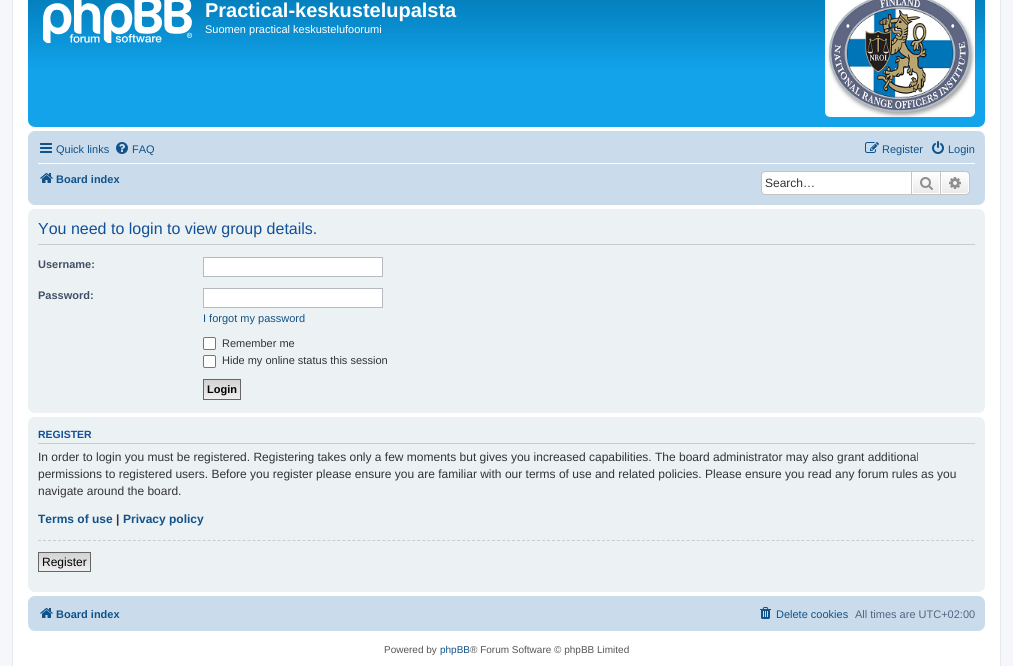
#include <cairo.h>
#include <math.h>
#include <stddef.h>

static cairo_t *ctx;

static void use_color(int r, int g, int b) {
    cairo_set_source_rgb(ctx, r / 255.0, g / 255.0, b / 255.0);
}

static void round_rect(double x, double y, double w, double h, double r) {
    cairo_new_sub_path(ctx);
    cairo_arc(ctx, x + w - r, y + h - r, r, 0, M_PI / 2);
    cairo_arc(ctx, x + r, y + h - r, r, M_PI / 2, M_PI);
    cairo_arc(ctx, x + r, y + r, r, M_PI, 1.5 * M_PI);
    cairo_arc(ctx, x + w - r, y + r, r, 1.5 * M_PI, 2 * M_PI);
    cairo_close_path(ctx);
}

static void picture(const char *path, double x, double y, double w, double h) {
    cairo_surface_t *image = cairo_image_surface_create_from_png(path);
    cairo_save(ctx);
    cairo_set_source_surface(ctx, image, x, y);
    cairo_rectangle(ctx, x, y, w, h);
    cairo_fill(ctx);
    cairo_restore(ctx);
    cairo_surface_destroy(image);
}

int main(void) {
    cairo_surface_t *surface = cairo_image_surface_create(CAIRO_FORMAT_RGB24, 1013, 666);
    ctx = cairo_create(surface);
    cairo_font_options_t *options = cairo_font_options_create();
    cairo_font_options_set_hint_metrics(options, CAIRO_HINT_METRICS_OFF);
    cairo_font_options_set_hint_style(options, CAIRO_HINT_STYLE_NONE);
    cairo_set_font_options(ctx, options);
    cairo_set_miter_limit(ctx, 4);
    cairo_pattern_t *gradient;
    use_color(245, 247, 250);
    cairo_paint(ctx);
    use_color(255, 255, 255);
    cairo_rectangle(ctx, 12.5, -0.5, 988, 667);
    cairo_fill_preserve(ctx);
    use_color(230, 233, 237);
    cairo_set_line_width(ctx, 1);
    cairo_stroke(ctx);
    gradient = cairo_pattern_create_linear(507, -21, 507, 127);
    cairo_pattern_add_color_stop_rgba(gradient, 0, 0.416, 0.808, 1, 1);
    cairo_pattern_add_color_stop_rgba(gradient, 0.01, 0, 0.463, 0.694, 1);
    cairo_pattern_add_color_stop_rgba(gradient, 0.62, 0.071, 0.639, 0.922, 1);
    cairo_pattern_add_color_stop_rgba(gradient, 1, 0.071, 0.639, 0.922, 1);
    cairo_set_source(ctx, gradient);
    cairo_pattern_destroy(gradient);
    round_rect(28, -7, 957, 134, 7);
    cairo_fill(ctx);
    picture("img1.png", 43, 0, 149, 43);
    cairo_select_font_face(ctx, "Liberation Sans", CAIRO_FONT_SLANT_NORMAL, CAIRO_FONT_WEIGHT_BOLD);
    cairo_set_font_size(ctx, 20);
    use_color(255, 255, 255);
    cairo_move_to(ctx, 205, 17);
    cairo_show_text(ctx, "Practical-keskustelupalsta");
    cairo_select_font_face(ctx, "Liberation Sans", CAIRO_FONT_SLANT_NORMAL, CAIRO_FONT_WEIGHT_NORMAL);
    cairo_set_font_size(ctx, 11);
    cairo_move_to(ctx, 205, 33);
    cairo_show_text(ctx, "Suomen practical keskustelufoorumi");
    picture("img2.png", 825, 0, 150, 117);
    use_color(202, 220, 235);
    round_rect(28, 131, 957, 74, 7);
    cairo_fill(ctx);
    picture("img3.png", 40, 143, 12, 10);
    use_color(16, 82, 137);
    cairo_move_to(ctx, 56, 153);
    cairo_show_text(ctx, "Quick links");
    picture("img4.png", 116, 142, 12, 12);
    cairo_move_to(ctx, 132, 153);
    cairo_show_text(ctx, "FAQ");
    picture("img5.png", 865, 142, 14, 11);
    cairo_move_to(ctx, 882, 153);
    cairo_show_text(ctx, "Register");
    picture("img6.png", 932, 141, 12, 13);
    cairo_move_to(ctx, 948, 153);
    cairo_show_text(ctx, "Login");
    use_color(255, 255, 255);
    cairo_rectangle(ctx, 38, 163, 937, 1);
    cairo_fill(ctx);
    picture("img7.png", 40, 173, 13, 10);
    cairo_select_font_face(ctx, "Liberation Sans", CAIRO_FONT_SLANT_NORMAL, CAIRO_FONT_WEIGHT_BOLD);
    use_color(16, 82, 137);
    cairo_move_to(ctx, 56, 183);
    cairo_show_text(ctx, "Board index");
    use_color(255, 255, 255);
    cairo_new_path(ctx);
    cairo_move_to(ctx, 765, 172);
    cairo_line_to(ctx, 911, 172);
    cairo_line_to(ctx, 911, 194);
    cairo_line_to(ctx, 765, 194);
    cairo_curve_to(ctx, 763.5, 194, 762, 192.5, 762, 191);
    cairo_line_to(ctx, 762, 175);
    cairo_curve_to(ctx, 762, 173.5, 763.5, 172, 765, 172);
    cairo_close_path(ctx);
    cairo_fill(ctx);
    use_color(199, 195, 191);
    cairo_set_fill_rule(ctx, CAIRO_FILL_RULE_EVEN_ODD);
    cairo_new_path(ctx);
    cairo_move_to(ctx, 765, 171);
    cairo_line_to(ctx, 911, 171);
    cairo_line_to(ctx, 911, 195);
    cairo_line_to(ctx, 765, 195);
    cairo_curve_to(ctx, 763, 195, 761, 193, 761, 191);
    cairo_line_to(ctx, 761, 175);
    cairo_curve_to(ctx, 761, 173, 763, 171, 765, 171);
    cairo_close_path(ctx);
    cairo_move_to(ctx, 765, 172);
    cairo_line_to(ctx, 911, 172);
    cairo_line_to(ctx, 911, 194);
    cairo_line_to(ctx, 765, 194);
    cairo_curve_to(ctx, 763, 194, 762, 193, 762, 191);
    cairo_line_to(ctx, 762, 175);
    cairo_curve_to(ctx, 762, 173, 763, 172, 765, 172);
    cairo_close_path(ctx);
    cairo_fill(ctx);
    cairo_select_font_face(ctx, "Liberation Sans", CAIRO_FONT_SLANT_NORMAL, CAIRO_FONT_WEIGHT_NORMAL);
    cairo_set_font_size(ctx, 12);
    use_color(51, 51, 51);
    cairo_move_to(ctx, 765, 187);
    cairo_show_text(ctx, "Search…");
    gradient = cairo_pattern_create_linear(926, 172, 926, 194);
    cairo_pattern_add_color_stop_rgba(gradient, 0, 1, 1, 1, 1);
    cairo_pattern_add_color_stop_rgba(gradient, 1, 0.914, 0.914, 0.914, 1);
    cairo_set_source(ctx, gradient);
    cairo_pattern_destroy(gradient);
    cairo_rectangle(ctx, 913, 173, 26, 20);
    cairo_fill(ctx);
    cairo_rectangle(ctx, 912.5, 172.5, 27, 21);
    use_color(255, 255, 255);
    cairo_stroke(ctx);
    cairo_rectangle(ctx, 911.5, 171.5, 29, 23);
    use_color(199, 195, 191);
    cairo_stroke(ctx);
    picture("img8.png", 920, 177, 13, 13);
    gradient = cairo_pattern_create_linear(955, 172, 955, 194);
    cairo_pattern_add_color_stop_rgba(gradient, 0, 1, 1, 1, 1);
    cairo_pattern_add_color_stop_rgba(gradient, 1, 0.914, 0.914, 0.914, 1);
    cairo_set_source(ctx, gradient);
    cairo_pattern_destroy(gradient);
    cairo_new_path(ctx);
    cairo_move_to(ctx, 941.5, 172.5);
    cairo_line_to(ctx, 966, 172.5);
    cairo_curve_to(ctx, 967.5, 172.5, 968.5, 173.5, 968.5, 175);
    cairo_line_to(ctx, 968.5, 191);
    cairo_curve_to(ctx, 968.5, 192.5, 967.5, 193.5, 966, 193.5);
    cairo_line_to(ctx, 941.5, 193.5);
    cairo_close_path(ctx);
    cairo_fill_preserve(ctx);
    use_color(255, 255, 255);
    cairo_stroke(ctx);
    use_color(199, 195, 191);
    cairo_new_path(ctx);
    cairo_move_to(ctx, 941, 171);
    cairo_line_to(ctx, 966, 171);
    cairo_curve_to(ctx, 968, 171, 970, 173, 970, 175);
    cairo_line_to(ctx, 970, 191);
    cairo_curve_to(ctx, 970, 193, 968, 195, 966, 195);
    cairo_line_to(ctx, 941, 195);
    cairo_close_path(ctx);
    cairo_move_to(ctx, 941, 172);
    cairo_line_to(ctx, 966, 172);
    cairo_curve_to(ctx, 967.5, 172, 969, 173.5, 969, 175);
    cairo_line_to(ctx, 969, 191);
    cairo_curve_to(ctx, 969, 192.5, 967.5, 194, 966, 194);
    cairo_line_to(ctx, 941, 194);
    cairo_close_path(ctx);
    cairo_fill(ctx);
    picture("img9.png", 949, 177, 12, 12);
    use_color(236, 241, 243);
    round_rect(28, 209, 957, 204, 7);
    cairo_fill(ctx);
    use_color(204, 204, 204);
    cairo_rectangle(ctx, 38, 244, 937, 1);
    cairo_fill(ctx);
    cairo_set_font_size(ctx, 16);
    use_color(17, 80, 152);
    cairo_move_to(ctx, 38, 234);
    cairo_show_text(ctx, "You need to login to view group details.");
    cairo_select_font_face(ctx, "Liberation Sans", CAIRO_FONT_SLANT_NORMAL, CAIRO_FONT_WEIGHT_BOLD);
    cairo_set_font_size(ctx, 11);
    use_color(66, 80, 103);
    cairo_move_to(ctx, 38, 268);
    cairo_show_text(ctx, "Username:");
    use_color(255, 255, 255);
    cairo_rectangle(ctx, 203.5, 257.5, 179, 19);
    cairo_fill_preserve(ctx);
    use_color(180, 186, 192);
    cairo_stroke(ctx);
    use_color(66, 80, 103);
    cairo_move_to(ctx, 38, 299);
    cairo_show_text(ctx, "Password:");
    use_color(255, 255, 255);
    cairo_rectangle(ctx, 203.5, 288.5, 179, 19);
    cairo_fill_preserve(ctx);
    use_color(180, 186, 192);
    cairo_stroke(ctx);
    cairo_select_font_face(ctx, "Liberation Sans", CAIRO_FONT_SLANT_NORMAL, CAIRO_FONT_WEIGHT_NORMAL);
    use_color(16, 82, 137);
    cairo_move_to(ctx, 203, 322);
    cairo_show_text(ctx, "I forgot my password");
    use_color(255, 255, 255);
    round_rect(203.5, 337.5, 12, 12, 1.5);
    cairo_fill_preserve(ctx);
    use_color(118, 118, 118);
    cairo_stroke(ctx);
    use_color(51, 51, 51);
    cairo_move_to(ctx, 222, 347);
    cairo_show_text(ctx, "Remember me");
    use_color(255, 255, 255);
    round_rect(203.5, 355.5, 12, 12, 1.5);
    cairo_fill_preserve(ctx);
    use_color(118, 118, 118);
    cairo_stroke(ctx);
    use_color(51, 51, 51);
    cairo_move_to(ctx, 222, 364);
    cairo_show_text(ctx, "Hide my online status this session");
    gradient = cairo_pattern_create_linear(222, 380, 222, 399);
    cairo_pattern_add_color_stop_rgba(gradient, 0, 0.824, 0.824, 0.824, 1);
    cairo_pattern_add_color_stop_rgba(gradient, 1, 0.937, 0.937, 0.937, 1);
    cairo_set_source(ctx, gradient);
    cairo_pattern_destroy(gradient);
    cairo_rectangle(ctx, 204, 380, 36, 19);
    cairo_fill(ctx);
    cairo_rectangle(ctx, 203.5, 379.5, 37, 20);
    use_color(102, 102, 102);
    cairo_stroke(ctx);
    cairo_select_font_face(ctx, "Liberation Sans", CAIRO_FONT_SLANT_NORMAL, CAIRO_FONT_WEIGHT_BOLD);
    use_color(0, 0, 0);
    cairo_move_to(ctx, 207, 393);
    cairo_show_text(ctx, "Login");
    use_color(236, 241, 243);
    round_rect(28, 417, 957, 175, 7);
    cairo_fill(ctx);
    use_color(204, 204, 204);
    cairo_rectangle(ctx, 38, 443, 937, 1);
    cairo_fill(ctx);
    cairo_set_font_size(ctx, 10.5);
    use_color(17, 80, 152);
    cairo_move_to(ctx, 38, 438);
    cairo_show_text(ctx, "REGISTER");
    cairo_select_font_face(ctx, "Liberation Sans", CAIRO_FONT_SLANT_NORMAL, CAIRO_FONT_WEIGHT_NORMAL);
    cairo_set_font_size(ctx, 12);
    use_color(51, 51, 51);
    cairo_move_to(ctx, 38, 461);
    cairo_show_text(ctx, "In order to login you must be registered. Registering takes only a few moments but gives you increased capabilities. The board administrator may also grant additional");
    cairo_move_to(ctx, 38, 478);
    cairo_show_text(ctx, "permissions to registered users. Before you register please ensure you are familiar with our terms of use and related policies. Please ensure you read any forum rules as you");
    cairo_move_to(ctx, 38, 495);
    cairo_show_text(ctx, "navigate around the board.");
    cairo_select_font_face(ctx, "Liberation Sans", CAIRO_FONT_SLANT_NORMAL, CAIRO_FONT_WEIGHT_BOLD);
    use_color(16, 82, 137);
    cairo_move_to(ctx, 38, 523);
    cairo_show_text(ctx, "Terms of use");
    use_color(51, 51, 51);
    cairo_move_to(ctx, 116, 523);
    cairo_show_text(ctx, "|");
    use_color(16, 82, 137);
    cairo_move_to(ctx, 123, 523);
    cairo_show_text(ctx, "Privacy policy");
    cairo_new_path(ctx);
    cairo_move_to(ctx, 38, 540.5);
    cairo_line_to(ctx, 975, 540.5);
    use_color(204, 204, 204);
    cairo_set_dash(ctx, (double[]){3, 1.99}, 2, 0);
    cairo_stroke(ctx);
    gradient = cairo_pattern_create_linear(65, 553, 65, 571);
    cairo_pattern_add_color_stop_rgba(gradient, 0, 0.824, 0.824, 0.824, 1);
    cairo_pattern_add_color_stop_rgba(gradient, 1, 0.937, 0.937, 0.937, 1);
    cairo_set_source(ctx, gradient);
    cairo_pattern_destroy(gradient);
    cairo_rectangle(ctx, 39, 553, 51, 18);
    cairo_fill(ctx);
    cairo_rectangle(ctx, 38.5, 552.5, 52, 19);
    use_color(102, 102, 102);
    cairo_set_dash(ctx, NULL, 0, 0);
    cairo_stroke(ctx);
    cairo_select_font_face(ctx, "Liberation Sans", CAIRO_FONT_SLANT_NORMAL, CAIRO_FONT_WEIGHT_NORMAL);
    use_color(0, 0, 0);
    cairo_move_to(ctx, 42, 566);
    cairo_show_text(ctx, "Register");
    use_color(202, 220, 235);
    round_rect(28, 596, 957, 35, 7);
    cairo_fill(ctx);
    picture("img7.png", 40, 608, 13, 10);
    cairo_select_font_face(ctx, "Liberation Sans", CAIRO_FONT_SLANT_NORMAL, CAIRO_FONT_WEIGHT_BOLD);
    cairo_set_font_size(ctx, 11);
    use_color(16, 82, 137);
    cairo_move_to(ctx, 56, 618);
    cairo_show_text(ctx, "Board index");
    picture("img10.png", 760, 607, 11, 12);
    cairo_select_font_face(ctx, "Liberation Sans", CAIRO_FONT_SLANT_NORMAL, CAIRO_FONT_WEIGHT_NORMAL);
    cairo_move_to(ctx, 776, 618);
    cairo_show_text(ctx, "Delete cookies");
    use_color(83, 100, 130);
    cairo_move_to(ctx, 855, 618);
    cairo_show_text(ctx, "All times are UTC+02:00");
    cairo_set_font_size(ctx, 10);
    use_color(85, 85, 85);
    cairo_move_to(ctx, 384, 653);
    cairo_show_text(ctx, "Powered by");
    use_color(16, 82, 137);
    cairo_move_to(ctx, 440, 653);
    cairo_show_text(ctx, "phpBB");
    use_color(85, 85, 85);
    cairo_move_to(ctx, 470, 653);
    cairo_show_text(ctx, "® Forum Software © phpBB Limited");
    cairo_surface_write_to_png(surface, "result.png");
    cairo_font_options_destroy(options);
    cairo_destroy(ctx);
    cairo_surface_destroy(surface);
    return 0;
}
